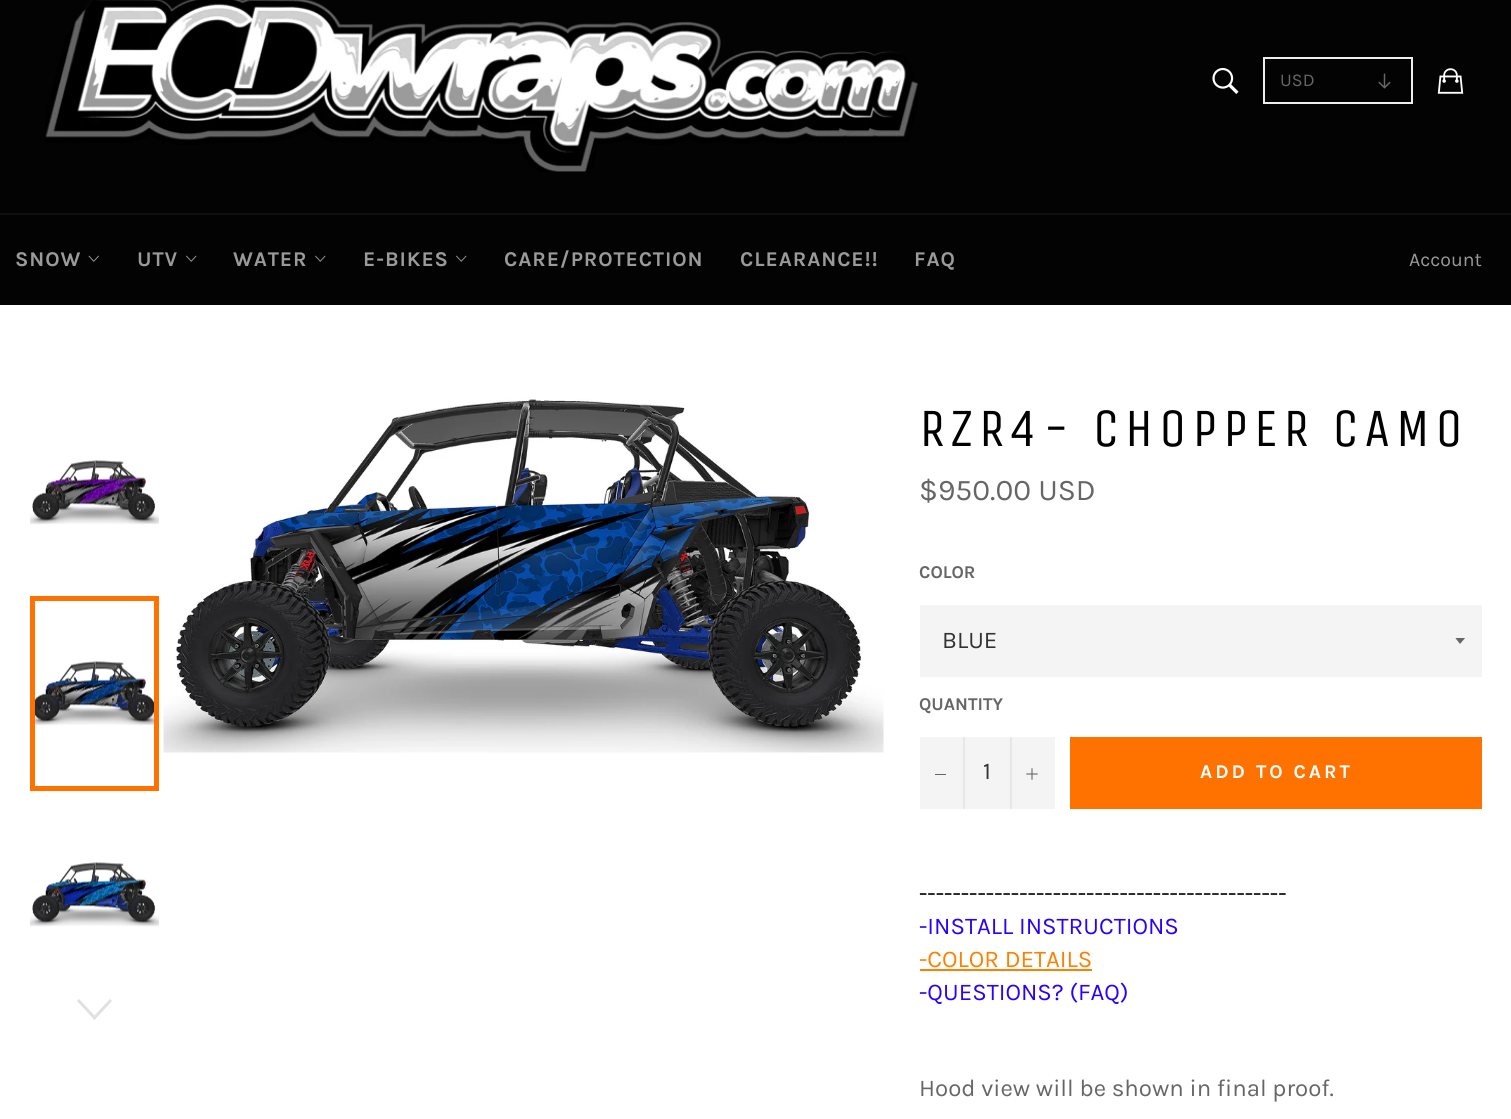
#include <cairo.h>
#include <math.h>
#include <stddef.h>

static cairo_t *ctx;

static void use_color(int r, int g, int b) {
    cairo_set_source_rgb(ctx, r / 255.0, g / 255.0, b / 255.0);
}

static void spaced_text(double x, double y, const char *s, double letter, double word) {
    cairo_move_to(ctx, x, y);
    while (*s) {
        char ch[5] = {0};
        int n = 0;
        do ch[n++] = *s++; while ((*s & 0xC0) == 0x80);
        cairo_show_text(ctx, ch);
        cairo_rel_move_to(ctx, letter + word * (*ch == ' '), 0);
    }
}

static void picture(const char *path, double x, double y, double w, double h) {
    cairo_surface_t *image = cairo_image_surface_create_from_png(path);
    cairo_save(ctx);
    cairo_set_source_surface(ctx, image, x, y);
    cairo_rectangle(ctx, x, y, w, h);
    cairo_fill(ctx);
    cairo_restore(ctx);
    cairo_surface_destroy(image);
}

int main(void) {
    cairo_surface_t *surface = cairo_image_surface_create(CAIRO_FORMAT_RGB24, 1511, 1119);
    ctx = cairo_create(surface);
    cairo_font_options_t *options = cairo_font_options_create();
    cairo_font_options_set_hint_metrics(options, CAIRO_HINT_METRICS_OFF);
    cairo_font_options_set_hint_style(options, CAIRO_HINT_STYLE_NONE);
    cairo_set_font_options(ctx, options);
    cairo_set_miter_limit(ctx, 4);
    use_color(255, 255, 255);
    cairo_paint(ctx);
    use_color(3, 3, 3);
    cairo_rectangle(ctx, 0, 0, 1511, 213);
    cairo_fill(ctx);
    picture("img1.png", 45, 0, 873, 172);
    picture("img2.png", 1212, 67, 27, 27);
    cairo_rectangle(ctx, 1264, 58, 148, 45);
    use_color(238, 238, 238);
    cairo_stroke(ctx);
    cairo_select_font_face(ctx, "Karla", CAIRO_FONT_SLANT_NORMAL, CAIRO_FONT_WEIGHT_NORMAL);
    cairo_set_font_size(ctx, 18);
    use_color(102, 102, 102);
    cairo_move_to(ctx, 1280, 86);
    cairo_show_text(ctx, "USD");
    picture("img3.png", 1378, 73, 13, 16);
    picture("img4.png", 1437, 68, 27, 26);
    use_color(3, 3, 3);
    cairo_rectangle(ctx, 0, 215, 1511, 90);
    cairo_fill(ctx);
    use_color(16, 16, 16);
    cairo_rectangle(ctx, 0, 213, 1511, 2);
    cairo_fill(ctx);
    cairo_select_font_face(ctx, "Karla", CAIRO_FONT_SLANT_NORMAL, CAIRO_FONT_WEIGHT_BOLD);
    cairo_set_font_size(ctx, 21);
    use_color(154, 154, 154);
    spaced_text(15, 266, "SNOW", 0.9, 0);
    picture("img5.png", 88, 255, 11, 7);
    spaced_text(137, 266, "UTV", 0.9, 0);
    picture("img6.png", 186, 255, 11, 7);
    spaced_text(233, 266, "WATER", 0.9, 0);
    picture("img6.png", 315, 255, 11, 7);
    spaced_text(363, 266, "E-BIKES", 0.9, 0);
    picture("img6.png", 456, 255, 11, 7);
    spaced_text(504, 266, "CARE/PROTECTION", 0.9, 0);
    spaced_text(740, 266, "CLEARANCE!!", 0.9, 0);
    spaced_text(914, 266, "FAQ", 0.9, 0);
    cairo_select_font_face(ctx, "Karla", CAIRO_FONT_SLANT_NORMAL, CAIRO_FONT_WEIGHT_NORMAL);
    cairo_set_font_size(ctx, 19.5);
    cairo_move_to(ctx, 1409, 266);
    cairo_show_text(ctx, "Account");
    picture("img7.png", 30, 460, 129, 65);
    picture("img8.png", 35, 661, 119, 65);
    cairo_rectangle(ctx, 32.5, 598.5, 124, 190);
    use_color(255, 114, 0);
    cairo_set_line_width(ctx, 5);
    cairo_stroke(ctx);
    picture("img9.png", 30, 862, 129, 65);
    use_color(224, 224, 224);
    cairo_new_path(ctx);
    cairo_move_to(ctx, 110, 999);
    cairo_line_to(ctx, 112, 1001);
    cairo_line_to(ctx, 94.5, 1020);
    cairo_line_to(ctx, 77, 1001);
    cairo_line_to(ctx, 79, 999);
    cairo_line_to(ctx, 94.5, 1015.5);
    cairo_close_path(ctx);
    cairo_fill(ctx);
    picture("img10.png", 163, 399, 721, 354);
    cairo_select_font_face(ctx, "Unica One", CAIRO_FONT_SLANT_NORMAL, CAIRO_FONT_WEIGHT_NORMAL);
    cairo_set_font_size(ctx, 54);
    use_color(0, 0, 0);
    spaced_text(919, 446, "RZR4- CHOPPER CAMO", 5.4, 0);
    cairo_select_font_face(ctx, "Karla", CAIRO_FONT_SLANT_NORMAL, CAIRO_FONT_WEIGHT_NORMAL);
    cairo_set_font_size(ctx, 30);
    use_color(102, 102, 102);
    cairo_move_to(ctx, 919, 500);
    cairo_show_text(ctx, "$950.00 USD");
    cairo_select_font_face(ctx, "Karla", CAIRO_FONT_SLANT_NORMAL, CAIRO_FONT_WEIGHT_BOLD);
    cairo_set_font_size(ctx, 18);
    cairo_move_to(ctx, 919, 578);
    cairo_show_text(ctx, "COLOR");
    use_color(244, 244, 244);
    cairo_rectangle(ctx, 920, 605, 562, 72);
    cairo_fill(ctx);
    cairo_save(ctx);
    cairo_rectangle(ctx, 1455, 638, 12, 7);
    cairo_clip(ctx);
    use_color(102, 102, 102);
    cairo_new_path(ctx);
    cairo_move_to(ctx, 1455, 637.5);
    cairo_line_to(ctx, 1460, 644);
    cairo_line_to(ctx, 1465.5, 637.5);
    cairo_close_path(ctx);
    cairo_fill(ctx);
    cairo_restore(ctx);
    cairo_select_font_face(ctx, "Karla", CAIRO_FONT_SLANT_NORMAL, CAIRO_FONT_WEIGHT_NORMAL);
    cairo_set_font_size(ctx, 24);
    use_color(51, 51, 51);
    cairo_move_to(ctx, 942, 648);
    cairo_show_text(ctx, "BLUE");
    cairo_select_font_face(ctx, "Karla", CAIRO_FONT_SLANT_NORMAL, CAIRO_FONT_WEIGHT_BOLD);
    cairo_set_font_size(ctx, 18);
    use_color(102, 102, 102);
    cairo_move_to(ctx, 919, 710);
    cairo_show_text(ctx, "QUANTITY");
    use_color(244, 244, 244);
    cairo_rectangle(ctx, 920, 737, 135, 72);
    cairo_fill(ctx);
    use_color(231, 231, 231);
    cairo_rectangle(ctx, 963, 737, 2, 72);
    cairo_fill(ctx);
    use_color(102, 102, 102);
    cairo_rectangle(ctx, 935, 774, 11, 1);
    cairo_fill(ctx);
    cairo_select_font_face(ctx, "Karla", CAIRO_FONT_SLANT_NORMAL, CAIRO_FONT_WEIGHT_NORMAL);
    cairo_set_font_size(ctx, 24);
    use_color(51, 51, 51);
    cairo_move_to(ctx, 983, 779);
    cairo_show_text(ctx, "1");
    use_color(231, 231, 231);
    cairo_rectangle(ctx, 1010, 737, 2, 72);
    cairo_fill(ctx);
    picture("img11.png", 1026, 768, 12, 12);
    use_color(255, 114, 0);
    cairo_rectangle(ctx, 1070, 737, 412, 72);
    cairo_fill(ctx);
    cairo_select_font_face(ctx, "Karla", CAIRO_FONT_SLANT_NORMAL, CAIRO_FONT_WEIGHT_BOLD);
    cairo_set_font_size(ctx, 19.5);
    use_color(255, 255, 255);
    spaced_text(1200, 778, "ADD TO CART", 3, 0);
    cairo_select_font_face(ctx, "Karla", CAIRO_FONT_SLANT_NORMAL, CAIRO_FONT_WEIGHT_NORMAL);
    cairo_set_font_size(ctx, 24);
    use_color(0, 0, 0);
    cairo_move_to(ctx, 919, 901);
    cairo_show_text(ctx, "--------------------------------------------");
    use_color(43, 0, 255);
    cairo_move_to(ctx, 919, 934);
    cairo_show_text(ctx, "-INSTALL INSTRUCTIONS");
    use_color(255, 128, 0);
    cairo_move_to(ctx, 919, 967);
    cairo_show_text(ctx, "-COLOR DETAILS");
    cairo_rectangle(ctx, 920, 969, 172, 2);
    cairo_fill(ctx);
    use_color(43, 0, 255);
    cairo_move_to(ctx, 919, 1000);
    cairo_show_text(ctx, "-QUESTIONS? (FAQ)");
    use_color(102, 102, 102);
    cairo_move_to(ctx, 919, 1096);
    cairo_show_text(ctx, "Hood view will be shown in final proof.");
    cairo_surface_write_to_png(surface, "result.png");
    cairo_font_options_destroy(options);
    cairo_destroy(ctx);
    cairo_surface_destroy(surface);
    return 0;
}
